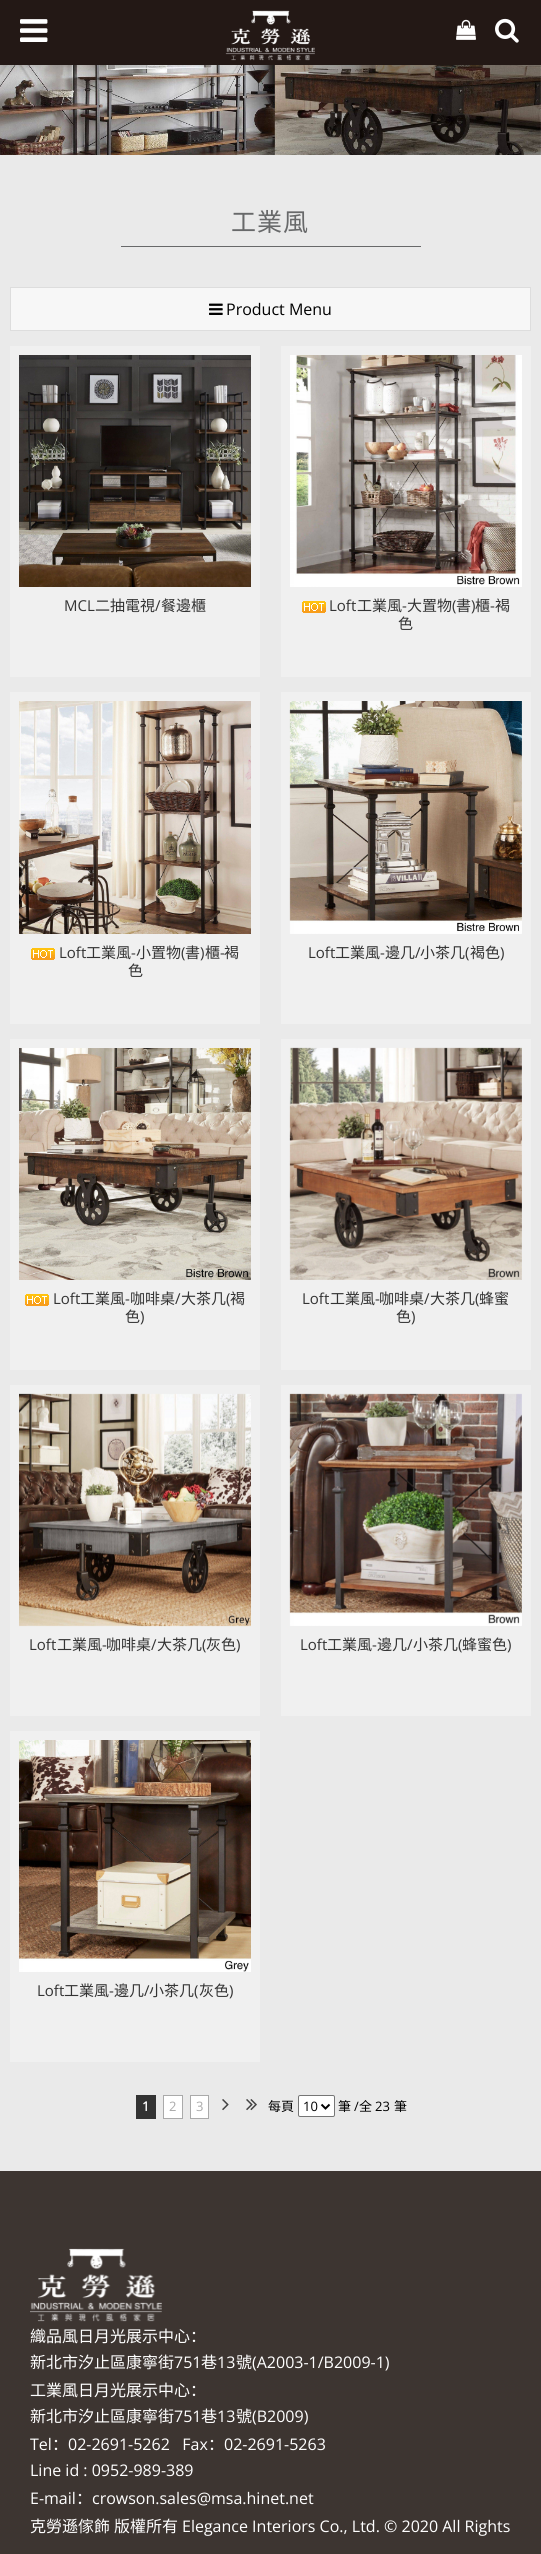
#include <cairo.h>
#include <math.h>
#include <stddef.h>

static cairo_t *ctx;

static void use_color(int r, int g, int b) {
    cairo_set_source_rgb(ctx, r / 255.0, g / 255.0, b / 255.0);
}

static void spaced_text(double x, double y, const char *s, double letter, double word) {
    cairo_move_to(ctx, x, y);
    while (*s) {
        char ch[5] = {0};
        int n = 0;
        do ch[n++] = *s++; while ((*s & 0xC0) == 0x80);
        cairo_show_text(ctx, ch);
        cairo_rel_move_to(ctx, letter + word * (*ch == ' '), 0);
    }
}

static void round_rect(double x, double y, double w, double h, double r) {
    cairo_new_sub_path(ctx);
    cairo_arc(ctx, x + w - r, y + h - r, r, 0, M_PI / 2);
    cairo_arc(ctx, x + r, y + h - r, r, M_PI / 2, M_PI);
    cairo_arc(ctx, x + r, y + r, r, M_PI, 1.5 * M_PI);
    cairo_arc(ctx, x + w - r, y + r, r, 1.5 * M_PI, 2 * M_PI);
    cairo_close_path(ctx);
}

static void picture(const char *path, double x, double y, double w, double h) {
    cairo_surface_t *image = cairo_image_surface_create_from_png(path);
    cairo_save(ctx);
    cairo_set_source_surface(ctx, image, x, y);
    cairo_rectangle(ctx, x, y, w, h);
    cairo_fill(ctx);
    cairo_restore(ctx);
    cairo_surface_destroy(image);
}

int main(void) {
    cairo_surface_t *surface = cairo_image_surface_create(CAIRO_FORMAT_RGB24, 541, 2554);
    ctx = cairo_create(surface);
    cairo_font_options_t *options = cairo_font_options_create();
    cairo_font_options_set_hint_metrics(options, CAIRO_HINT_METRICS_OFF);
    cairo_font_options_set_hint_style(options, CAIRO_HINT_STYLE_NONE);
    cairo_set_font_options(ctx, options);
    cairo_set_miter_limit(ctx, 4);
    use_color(234, 234, 234);
    cairo_paint(ctx);
    use_color(35, 24, 21);
    cairo_rectangle(ctx, 0, 0, 541, 65);
    cairo_fill(ctx);
    picture("img1.png", 20, 19, 28, 23);
    picture("img2.png", 225, 10, 90, 51);
    picture("img3.png", 456, 19, 20, 21);
    picture("img4.png", 495, 18, 24, 25);
    picture("img5.png", 0, 65, 541, 90);
    cairo_select_font_face(ctx, "Noto Sans CJK SC", CAIRO_FONT_SLANT_NORMAL, CAIRO_FONT_WEIGHT_NORMAL);
    cairo_set_font_size(ctx, 25);
    use_color(104, 105, 106);
    spaced_text(231, 231, "工業風", 1, 0);
    cairo_rectangle(ctx, 121, 246, 300, 1);
    cairo_fill(ctx);
    use_color(247, 247, 247);
    cairo_rectangle(ctx, 10.5, 287.5, 520, 43);
    cairo_fill_preserve(ctx);
    use_color(221, 221, 221);
    cairo_set_line_width(ctx, 1);
    cairo_stroke(ctx);
    picture("img6.png", 209, 303, 14, 12);
    cairo_select_font_face(ctx, "Open Sans", CAIRO_FONT_SLANT_NORMAL, CAIRO_FONT_WEIGHT_NORMAL);
    cairo_set_font_size(ctx, 16);
    use_color(0, 0, 0);
    cairo_move_to(ctx, 226, 315);
    cairo_show_text(ctx, "Product Menu");
    use_color(240, 240, 240);
    cairo_rectangle(ctx, 10, 346, 250, 331);
    cairo_fill(ctx);
    picture("img7.png", 19, 355, 232, 232);
    cairo_set_font_size(ctx, 15);
    use_color(51, 51, 51);
    cairo_move_to(ctx, 64, 611);
    cairo_show_text(ctx, "MCL");
    cairo_select_font_face(ctx, "Noto Sans CJK SC", CAIRO_FONT_SLANT_NORMAL, CAIRO_FONT_WEIGHT_NORMAL);
    cairo_move_to(ctx, 95, 611);
    cairo_show_text(ctx, "二抽電視");
    cairo_select_font_face(ctx, "Open Sans", CAIRO_FONT_SLANT_NORMAL, CAIRO_FONT_WEIGHT_NORMAL);
    cairo_move_to(ctx, 155, 611);
    cairo_show_text(ctx, "/");
    cairo_select_font_face(ctx, "Noto Sans CJK SC", CAIRO_FONT_SLANT_NORMAL, CAIRO_FONT_WEIGHT_NORMAL);
    cairo_move_to(ctx, 161, 611);
    cairo_show_text(ctx, "餐邊櫃");
    use_color(240, 240, 240);
    cairo_rectangle(ctx, 281, 346, 250, 331);
    cairo_fill(ctx);
    picture("img8.png", 290, 355, 232, 232);
    picture("img9.png", 302, 601, 24, 12);
    cairo_select_font_face(ctx, "Open Sans", CAIRO_FONT_SLANT_NORMAL, CAIRO_FONT_WEIGHT_NORMAL);
    use_color(51, 51, 51);
    cairo_move_to(ctx, 329, 611);
    cairo_show_text(ctx, "Loft");
    cairo_select_font_face(ctx, "Noto Sans CJK SC", CAIRO_FONT_SLANT_NORMAL, CAIRO_FONT_WEIGHT_NORMAL);
    cairo_move_to(ctx, 357, 611);
    cairo_show_text(ctx, "工業風");
    cairo_select_font_face(ctx, "Open Sans", CAIRO_FONT_SLANT_NORMAL, CAIRO_FONT_WEIGHT_NORMAL);
    cairo_move_to(ctx, 402, 611);
    cairo_show_text(ctx, "-");
    cairo_select_font_face(ctx, "Noto Sans CJK SC", CAIRO_FONT_SLANT_NORMAL, CAIRO_FONT_WEIGHT_NORMAL);
    cairo_move_to(ctx, 407, 611);
    cairo_show_text(ctx, "大置物");
    cairo_select_font_face(ctx, "Open Sans", CAIRO_FONT_SLANT_NORMAL, CAIRO_FONT_WEIGHT_NORMAL);
    cairo_move_to(ctx, 452, 611);
    cairo_show_text(ctx, "(");
    cairo_select_font_face(ctx, "Noto Sans CJK SC", CAIRO_FONT_SLANT_NORMAL, CAIRO_FONT_WEIGHT_NORMAL);
    cairo_move_to(ctx, 456, 611);
    cairo_show_text(ctx, "書");
    cairo_select_font_face(ctx, "Open Sans", CAIRO_FONT_SLANT_NORMAL, CAIRO_FONT_WEIGHT_NORMAL);
    cairo_move_to(ctx, 471, 611);
    cairo_show_text(ctx, ")");
    cairo_select_font_face(ctx, "Noto Sans CJK SC", CAIRO_FONT_SLANT_NORMAL, CAIRO_FONT_WEIGHT_NORMAL);
    cairo_move_to(ctx, 475, 611);
    cairo_show_text(ctx, "櫃");
    cairo_select_font_face(ctx, "Open Sans", CAIRO_FONT_SLANT_NORMAL, CAIRO_FONT_WEIGHT_NORMAL);
    cairo_move_to(ctx, 490, 611);
    cairo_show_text(ctx, "-");
    cairo_select_font_face(ctx, "Noto Sans CJK SC", CAIRO_FONT_SLANT_NORMAL, CAIRO_FONT_WEIGHT_NORMAL);
    cairo_move_to(ctx, 495, 611);
    cairo_show_text(ctx, "褐");
    cairo_move_to(ctx, 398, 629);
    cairo_show_text(ctx, "色");
    use_color(240, 240, 240);
    cairo_rectangle(ctx, 10, 692, 250, 332);
    cairo_fill(ctx);
    picture("img10.png", 19, 701, 232, 233);
    picture("img9.png", 31, 948, 24, 12);
    cairo_select_font_face(ctx, "Open Sans", CAIRO_FONT_SLANT_NORMAL, CAIRO_FONT_WEIGHT_NORMAL);
    use_color(51, 51, 51);
    cairo_move_to(ctx, 59, 958);
    cairo_show_text(ctx, "Loft");
    cairo_select_font_face(ctx, "Noto Sans CJK SC", CAIRO_FONT_SLANT_NORMAL, CAIRO_FONT_WEIGHT_NORMAL);
    cairo_move_to(ctx, 86, 958);
    cairo_show_text(ctx, "工業風");
    cairo_select_font_face(ctx, "Open Sans", CAIRO_FONT_SLANT_NORMAL, CAIRO_FONT_WEIGHT_NORMAL);
    cairo_move_to(ctx, 131, 958);
    cairo_show_text(ctx, "-");
    cairo_select_font_face(ctx, "Noto Sans CJK SC", CAIRO_FONT_SLANT_NORMAL, CAIRO_FONT_WEIGHT_NORMAL);
    cairo_move_to(ctx, 136, 958);
    cairo_show_text(ctx, "小置物");
    cairo_select_font_face(ctx, "Open Sans", CAIRO_FONT_SLANT_NORMAL, CAIRO_FONT_WEIGHT_NORMAL);
    cairo_move_to(ctx, 181, 958);
    cairo_show_text(ctx, "(");
    cairo_select_font_face(ctx, "Noto Sans CJK SC", CAIRO_FONT_SLANT_NORMAL, CAIRO_FONT_WEIGHT_NORMAL);
    cairo_move_to(ctx, 185, 958);
    cairo_show_text(ctx, "書");
    cairo_select_font_face(ctx, "Open Sans", CAIRO_FONT_SLANT_NORMAL, CAIRO_FONT_WEIGHT_NORMAL);
    cairo_move_to(ctx, 200, 958);
    cairo_show_text(ctx, ")");
    cairo_select_font_face(ctx, "Noto Sans CJK SC", CAIRO_FONT_SLANT_NORMAL, CAIRO_FONT_WEIGHT_NORMAL);
    cairo_move_to(ctx, 205, 958);
    cairo_show_text(ctx, "櫃");
    cairo_select_font_face(ctx, "Open Sans", CAIRO_FONT_SLANT_NORMAL, CAIRO_FONT_WEIGHT_NORMAL);
    cairo_move_to(ctx, 220, 958);
    cairo_show_text(ctx, "-");
    cairo_select_font_face(ctx, "Noto Sans CJK SC", CAIRO_FONT_SLANT_NORMAL, CAIRO_FONT_WEIGHT_NORMAL);
    cairo_move_to(ctx, 224, 958);
    cairo_show_text(ctx, "褐");
    cairo_move_to(ctx, 128, 976);
    cairo_show_text(ctx, "色");
    use_color(240, 240, 240);
    cairo_rectangle(ctx, 281, 692, 250, 332);
    cairo_fill(ctx);
    picture("img11.png", 289, 701, 233, 233);
    cairo_select_font_face(ctx, "Open Sans", CAIRO_FONT_SLANT_NORMAL, CAIRO_FONT_WEIGHT_NORMAL);
    use_color(51, 51, 51);
    cairo_move_to(ctx, 308, 958);
    cairo_show_text(ctx, "Loft");
    cairo_select_font_face(ctx, "Noto Sans CJK SC", CAIRO_FONT_SLANT_NORMAL, CAIRO_FONT_WEIGHT_NORMAL);
    cairo_move_to(ctx, 335, 958);
    cairo_show_text(ctx, "工業風");
    cairo_select_font_face(ctx, "Open Sans", CAIRO_FONT_SLANT_NORMAL, CAIRO_FONT_WEIGHT_NORMAL);
    cairo_move_to(ctx, 380, 958);
    cairo_show_text(ctx, "-");
    cairo_select_font_face(ctx, "Noto Sans CJK SC", CAIRO_FONT_SLANT_NORMAL, CAIRO_FONT_WEIGHT_NORMAL);
    cairo_move_to(ctx, 385, 958);
    cairo_show_text(ctx, "邊几");
    cairo_select_font_face(ctx, "Open Sans", CAIRO_FONT_SLANT_NORMAL, CAIRO_FONT_WEIGHT_NORMAL);
    cairo_move_to(ctx, 415, 958);
    cairo_show_text(ctx, "/");
    cairo_select_font_face(ctx, "Noto Sans CJK SC", CAIRO_FONT_SLANT_NORMAL, CAIRO_FONT_WEIGHT_NORMAL);
    cairo_move_to(ctx, 420, 958);
    cairo_show_text(ctx, "小茶几");
    cairo_select_font_face(ctx, "Open Sans", CAIRO_FONT_SLANT_NORMAL, CAIRO_FONT_WEIGHT_NORMAL);
    cairo_move_to(ctx, 465, 958);
    cairo_show_text(ctx, "(");
    cairo_select_font_face(ctx, "Noto Sans CJK SC", CAIRO_FONT_SLANT_NORMAL, CAIRO_FONT_WEIGHT_NORMAL);
    cairo_move_to(ctx, 470, 958);
    cairo_show_text(ctx, "褐色");
    cairo_select_font_face(ctx, "Open Sans", CAIRO_FONT_SLANT_NORMAL, CAIRO_FONT_WEIGHT_NORMAL);
    cairo_move_to(ctx, 500, 958);
    cairo_show_text(ctx, ")");
    use_color(240, 240, 240);
    cairo_rectangle(ctx, 10, 1039, 250, 331);
    cairo_fill(ctx);
    picture("img12.png", 19, 1048, 232, 232);
    picture("img9.png", 25, 1294, 24, 12);
    use_color(51, 51, 51);
    cairo_move_to(ctx, 53, 1304);
    cairo_show_text(ctx, "Loft");
    cairo_select_font_face(ctx, "Noto Sans CJK SC", CAIRO_FONT_SLANT_NORMAL, CAIRO_FONT_WEIGHT_NORMAL);
    cairo_move_to(ctx, 80, 1304);
    cairo_show_text(ctx, "工業風");
    cairo_select_font_face(ctx, "Open Sans", CAIRO_FONT_SLANT_NORMAL, CAIRO_FONT_WEIGHT_NORMAL);
    cairo_move_to(ctx, 125, 1304);
    cairo_show_text(ctx, "-");
    cairo_select_font_face(ctx, "Noto Sans CJK SC", CAIRO_FONT_SLANT_NORMAL, CAIRO_FONT_WEIGHT_NORMAL);
    cairo_move_to(ctx, 130, 1304);
    cairo_show_text(ctx, "咖啡桌");
    cairo_select_font_face(ctx, "Open Sans", CAIRO_FONT_SLANT_NORMAL, CAIRO_FONT_WEIGHT_NORMAL);
    cairo_move_to(ctx, 175, 1304);
    cairo_show_text(ctx, "/");
    cairo_select_font_face(ctx, "Noto Sans CJK SC", CAIRO_FONT_SLANT_NORMAL, CAIRO_FONT_WEIGHT_NORMAL);
    cairo_move_to(ctx, 181, 1304);
    cairo_show_text(ctx, "大茶几");
    cairo_select_font_face(ctx, "Open Sans", CAIRO_FONT_SLANT_NORMAL, CAIRO_FONT_WEIGHT_NORMAL);
    cairo_move_to(ctx, 226, 1304);
    cairo_show_text(ctx, "(");
    cairo_select_font_face(ctx, "Noto Sans CJK SC", CAIRO_FONT_SLANT_NORMAL, CAIRO_FONT_WEIGHT_NORMAL);
    cairo_move_to(ctx, 230, 1304);
    cairo_show_text(ctx, "褐");
    cairo_move_to(ctx, 125, 1322);
    cairo_show_text(ctx, "色");
    cairo_select_font_face(ctx, "Open Sans", CAIRO_FONT_SLANT_NORMAL, CAIRO_FONT_WEIGHT_NORMAL);
    cairo_move_to(ctx, 140, 1322);
    cairo_show_text(ctx, ")");
    use_color(240, 240, 240);
    cairo_rectangle(ctx, 281, 1039, 250, 331);
    cairo_fill(ctx);
    picture("img13.png", 289, 1047, 233, 233);
    use_color(51, 51, 51);
    cairo_move_to(ctx, 302, 1304);
    cairo_show_text(ctx, "Loft");
    cairo_select_font_face(ctx, "Noto Sans CJK SC", CAIRO_FONT_SLANT_NORMAL, CAIRO_FONT_WEIGHT_NORMAL);
    cairo_move_to(ctx, 330, 1304);
    cairo_show_text(ctx, "工業風");
    cairo_select_font_face(ctx, "Open Sans", CAIRO_FONT_SLANT_NORMAL, CAIRO_FONT_WEIGHT_NORMAL);
    cairo_move_to(ctx, 375, 1304);
    cairo_show_text(ctx, "-");
    cairo_select_font_face(ctx, "Noto Sans CJK SC", CAIRO_FONT_SLANT_NORMAL, CAIRO_FONT_WEIGHT_NORMAL);
    cairo_move_to(ctx, 379, 1304);
    cairo_show_text(ctx, "咖啡桌");
    cairo_select_font_face(ctx, "Open Sans", CAIRO_FONT_SLANT_NORMAL, CAIRO_FONT_WEIGHT_NORMAL);
    cairo_move_to(ctx, 424, 1304);
    cairo_show_text(ctx, "/");
    cairo_select_font_face(ctx, "Noto Sans CJK SC", CAIRO_FONT_SLANT_NORMAL, CAIRO_FONT_WEIGHT_NORMAL);
    cairo_move_to(ctx, 430, 1304);
    cairo_show_text(ctx, "大茶几");
    cairo_select_font_face(ctx, "Open Sans", CAIRO_FONT_SLANT_NORMAL, CAIRO_FONT_WEIGHT_NORMAL);
    cairo_move_to(ctx, 475, 1304);
    cairo_show_text(ctx, "(");
    cairo_select_font_face(ctx, "Noto Sans CJK SC", CAIRO_FONT_SLANT_NORMAL, CAIRO_FONT_WEIGHT_NORMAL);
    cairo_move_to(ctx, 479, 1304);
    cairo_show_text(ctx, "蜂蜜");
    cairo_move_to(ctx, 396, 1322);
    cairo_show_text(ctx, "色");
    cairo_select_font_face(ctx, "Open Sans", CAIRO_FONT_SLANT_NORMAL, CAIRO_FONT_WEIGHT_NORMAL);
    cairo_move_to(ctx, 411, 1322);
    cairo_show_text(ctx, ")");
    use_color(240, 240, 240);
    cairo_rectangle(ctx, 10, 1385, 250, 331);
    cairo_fill(ctx);
    picture("img14.png", 19, 1393, 232, 234);
    use_color(51, 51, 51);
    cairo_move_to(ctx, 29, 1650);
    cairo_show_text(ctx, "Loft");
    cairo_select_font_face(ctx, "Noto Sans CJK SC", CAIRO_FONT_SLANT_NORMAL, CAIRO_FONT_WEIGHT_NORMAL);
    cairo_move_to(ctx, 57, 1650);
    cairo_show_text(ctx, "工業風");
    cairo_select_font_face(ctx, "Open Sans", CAIRO_FONT_SLANT_NORMAL, CAIRO_FONT_WEIGHT_NORMAL);
    cairo_move_to(ctx, 102, 1650);
    cairo_show_text(ctx, "-");
    cairo_select_font_face(ctx, "Noto Sans CJK SC", CAIRO_FONT_SLANT_NORMAL, CAIRO_FONT_WEIGHT_NORMAL);
    cairo_move_to(ctx, 106, 1650);
    cairo_show_text(ctx, "咖啡桌");
    cairo_select_font_face(ctx, "Open Sans", CAIRO_FONT_SLANT_NORMAL, CAIRO_FONT_WEIGHT_NORMAL);
    cairo_move_to(ctx, 151, 1650);
    cairo_show_text(ctx, "/");
    cairo_select_font_face(ctx, "Noto Sans CJK SC", CAIRO_FONT_SLANT_NORMAL, CAIRO_FONT_WEIGHT_NORMAL);
    cairo_move_to(ctx, 157, 1650);
    cairo_show_text(ctx, "大茶几");
    cairo_select_font_face(ctx, "Open Sans", CAIRO_FONT_SLANT_NORMAL, CAIRO_FONT_WEIGHT_NORMAL);
    cairo_move_to(ctx, 202, 1650);
    cairo_show_text(ctx, "(");
    cairo_select_font_face(ctx, "Noto Sans CJK SC", CAIRO_FONT_SLANT_NORMAL, CAIRO_FONT_WEIGHT_NORMAL);
    cairo_move_to(ctx, 206, 1650);
    cairo_show_text(ctx, "灰色");
    cairo_select_font_face(ctx, "Open Sans", CAIRO_FONT_SLANT_NORMAL, CAIRO_FONT_WEIGHT_NORMAL);
    cairo_move_to(ctx, 236, 1650);
    cairo_show_text(ctx, ")");
    use_color(240, 240, 240);
    cairo_rectangle(ctx, 281, 1385, 250, 331);
    cairo_fill(ctx);
    picture("img15.png", 289, 1393, 233, 233);
    use_color(51, 51, 51);
    cairo_move_to(ctx, 300, 1650);
    cairo_show_text(ctx, "Loft");
    cairo_select_font_face(ctx, "Noto Sans CJK SC", CAIRO_FONT_SLANT_NORMAL, CAIRO_FONT_WEIGHT_NORMAL);
    cairo_move_to(ctx, 327, 1650);
    cairo_show_text(ctx, "工業風");
    cairo_select_font_face(ctx, "Open Sans", CAIRO_FONT_SLANT_NORMAL, CAIRO_FONT_WEIGHT_NORMAL);
    cairo_move_to(ctx, 372, 1650);
    cairo_show_text(ctx, "-");
    cairo_select_font_face(ctx, "Noto Sans CJK SC", CAIRO_FONT_SLANT_NORMAL, CAIRO_FONT_WEIGHT_NORMAL);
    cairo_move_to(ctx, 377, 1650);
    cairo_show_text(ctx, "邊几");
    cairo_select_font_face(ctx, "Open Sans", CAIRO_FONT_SLANT_NORMAL, CAIRO_FONT_WEIGHT_NORMAL);
    cairo_move_to(ctx, 407, 1650);
    cairo_show_text(ctx, "/");
    cairo_select_font_face(ctx, "Noto Sans CJK SC", CAIRO_FONT_SLANT_NORMAL, CAIRO_FONT_WEIGHT_NORMAL);
    cairo_move_to(ctx, 413, 1650);
    cairo_show_text(ctx, "小茶几");
    cairo_select_font_face(ctx, "Open Sans", CAIRO_FONT_SLANT_NORMAL, CAIRO_FONT_WEIGHT_NORMAL);
    cairo_move_to(ctx, 458, 1650);
    cairo_show_text(ctx, "(");
    cairo_select_font_face(ctx, "Noto Sans CJK SC", CAIRO_FONT_SLANT_NORMAL, CAIRO_FONT_WEIGHT_NORMAL);
    cairo_move_to(ctx, 462, 1650);
    cairo_show_text(ctx, "蜂蜜色");
    cairo_select_font_face(ctx, "Open Sans", CAIRO_FONT_SLANT_NORMAL, CAIRO_FONT_WEIGHT_NORMAL);
    cairo_move_to(ctx, 507, 1650);
    cairo_show_text(ctx, ")");
    use_color(240, 240, 240);
    cairo_rectangle(ctx, 10, 1731, 250, 331);
    cairo_fill(ctx);
    picture("img16.png", 19, 1740, 232, 232);
    use_color(51, 51, 51);
    cairo_move_to(ctx, 37, 1996);
    cairo_show_text(ctx, "Loft");
    cairo_select_font_face(ctx, "Noto Sans CJK SC", CAIRO_FONT_SLANT_NORMAL, CAIRO_FONT_WEIGHT_NORMAL);
    cairo_move_to(ctx, 64, 1996);
    cairo_show_text(ctx, "工業風");
    cairo_select_font_face(ctx, "Open Sans", CAIRO_FONT_SLANT_NORMAL, CAIRO_FONT_WEIGHT_NORMAL);
    cairo_move_to(ctx, 109, 1996);
    cairo_show_text(ctx, "-");
    cairo_select_font_face(ctx, "Noto Sans CJK SC", CAIRO_FONT_SLANT_NORMAL, CAIRO_FONT_WEIGHT_NORMAL);
    cairo_move_to(ctx, 114, 1996);
    cairo_show_text(ctx, "邊几");
    cairo_select_font_face(ctx, "Open Sans", CAIRO_FONT_SLANT_NORMAL, CAIRO_FONT_WEIGHT_NORMAL);
    cairo_move_to(ctx, 144, 1996);
    cairo_show_text(ctx, "/");
    cairo_select_font_face(ctx, "Noto Sans CJK SC", CAIRO_FONT_SLANT_NORMAL, CAIRO_FONT_WEIGHT_NORMAL);
    cairo_move_to(ctx, 149, 1996);
    cairo_show_text(ctx, "小茶几");
    cairo_select_font_face(ctx, "Open Sans", CAIRO_FONT_SLANT_NORMAL, CAIRO_FONT_WEIGHT_NORMAL);
    cairo_move_to(ctx, 194, 1996);
    cairo_show_text(ctx, "(");
    cairo_select_font_face(ctx, "Noto Sans CJK SC", CAIRO_FONT_SLANT_NORMAL, CAIRO_FONT_WEIGHT_NORMAL);
    cairo_move_to(ctx, 199, 1996);
    cairo_show_text(ctx, "灰色");
    cairo_select_font_face(ctx, "Open Sans", CAIRO_FONT_SLANT_NORMAL, CAIRO_FONT_WEIGHT_NORMAL);
    cairo_move_to(ctx, 229, 1996);
    cairo_show_text(ctx, ")");
    cairo_rectangle(ctx, 136, 2095, 20, 24);
    cairo_fill(ctx);
    cairo_select_font_face(ctx, "Open Sans", CAIRO_FONT_SLANT_NORMAL, CAIRO_FONT_WEIGHT_BOLD);
    cairo_set_font_size(ctx, 13);
    use_color(255, 255, 255);
    cairo_move_to(ctx, 142, 2111);
    cairo_show_text(ctx, "1");
    cairo_rectangle(ctx, 163.5, 2095.5, 19, 23);
    cairo_fill_preserve(ctx);
    use_color(170, 170, 170);
    cairo_stroke(ctx);
    cairo_select_font_face(ctx, "Open Sans", CAIRO_FONT_SLANT_NORMAL, CAIRO_FONT_WEIGHT_NORMAL);
    cairo_move_to(ctx, 169, 2111);
    cairo_show_text(ctx, "2");
    use_color(255, 255, 255);
    cairo_rectangle(ctx, 190.5, 2095.5, 18, 23);
    cairo_fill_preserve(ctx);
    use_color(170, 170, 170);
    cairo_stroke(ctx);
    cairo_move_to(ctx, 196, 2111);
    cairo_show_text(ctx, "3");
    picture("img17.png", 222, 2099, 7, 12);
    picture("img18.png", 246, 2099, 11, 12);
    cairo_select_font_face(ctx, "Noto Sans CJK SC", CAIRO_FONT_SLANT_NORMAL, CAIRO_FONT_WEIGHT_NORMAL);
    use_color(0, 0, 0);
    cairo_move_to(ctx, 268, 2111);
    cairo_show_text(ctx, "每頁");
    use_color(255, 255, 255);
    round_rect(298.5, 2095.5, 36, 21, 1.5);
    cairo_fill_preserve(ctx);
    use_color(118, 118, 118);
    cairo_stroke(ctx);
    cairo_new_path(ctx);
    cairo_move_to(ctx, 321.5, 2104.5);
    cairo_line_to(ctx, 325.5, 2108.5);
    cairo_line_to(ctx, 329.5, 2104.5);
    use_color(0, 0, 0);
    cairo_set_line_width(ctx, 2);
    cairo_stroke(ctx);
    cairo_select_font_face(ctx, "Open Sans", CAIRO_FONT_SLANT_NORMAL, CAIRO_FONT_WEIGHT_NORMAL);
    cairo_move_to(ctx, 303, 2111);
    cairo_show_text(ctx, "10");
    cairo_select_font_face(ctx, "Noto Sans CJK SC", CAIRO_FONT_SLANT_NORMAL, CAIRO_FONT_WEIGHT_NORMAL);
    cairo_move_to(ctx, 338, 2111);
    cairo_show_text(ctx, "筆");
    cairo_select_font_face(ctx, "Open Sans", CAIRO_FONT_SLANT_NORMAL, CAIRO_FONT_WEIGHT_NORMAL);
    cairo_move_to(ctx, 354, 2111);
    cairo_show_text(ctx, "/");
    cairo_select_font_face(ctx, "Noto Sans CJK SC", CAIRO_FONT_SLANT_NORMAL, CAIRO_FONT_WEIGHT_NORMAL);
    cairo_move_to(ctx, 359, 2111);
    cairo_show_text(ctx, "全");
    cairo_select_font_face(ctx, "Open Sans", CAIRO_FONT_SLANT_NORMAL, CAIRO_FONT_WEIGHT_NORMAL);
    cairo_move_to(ctx, 375, 2111);
    cairo_show_text(ctx, "23");
    cairo_select_font_face(ctx, "Noto Sans CJK SC", CAIRO_FONT_SLANT_NORMAL, CAIRO_FONT_WEIGHT_NORMAL);
    cairo_move_to(ctx, 394, 2111);
    cairo_show_text(ctx, "筆");
    use_color(61, 53, 49);
    cairo_rectangle(ctx, 0, 2171, 541, 383);
    cairo_fill(ctx);
    picture("img19.png", 30, 2248, 132, 74);
    cairo_set_font_size(ctx, 16);
    use_color(255, 255, 255);
    cairo_move_to(ctx, 30, 2342);
    cairo_show_text(ctx, "織品風日月光展示中心：");
    cairo_move_to(ctx, 30, 2368);
    cairo_show_text(ctx, "新北市汐止區康寧街");
    cairo_select_font_face(ctx, "Open Sans", CAIRO_FONT_SLANT_NORMAL, CAIRO_FONT_WEIGHT_NORMAL);
    cairo_move_to(ctx, 174, 2368);
    cairo_show_text(ctx, "751");
    cairo_select_font_face(ctx, "Noto Sans CJK SC", CAIRO_FONT_SLANT_NORMAL, CAIRO_FONT_WEIGHT_NORMAL);
    cairo_move_to(ctx, 201, 2368);
    cairo_show_text(ctx, "巷");
    cairo_select_font_face(ctx, "Open Sans", CAIRO_FONT_SLANT_NORMAL, CAIRO_FONT_WEIGHT_NORMAL);
    cairo_move_to(ctx, 217, 2368);
    cairo_show_text(ctx, "13");
    cairo_select_font_face(ctx, "Noto Sans CJK SC", CAIRO_FONT_SLANT_NORMAL, CAIRO_FONT_WEIGHT_NORMAL);
    cairo_move_to(ctx, 236, 2368);
    cairo_show_text(ctx, "號");
    cairo_select_font_face(ctx, "Open Sans", CAIRO_FONT_SLANT_NORMAL, CAIRO_FONT_WEIGHT_NORMAL);
    cairo_move_to(ctx, 252, 2368);
    cairo_show_text(ctx, "(A2003-1/B2009-1)");
    cairo_select_font_face(ctx, "Noto Sans CJK SC", CAIRO_FONT_SLANT_NORMAL, CAIRO_FONT_WEIGHT_NORMAL);
    cairo_move_to(ctx, 30, 2396);
    cairo_show_text(ctx, "工業風日月光展示中心：");
    cairo_move_to(ctx, 30, 2422);
    cairo_show_text(ctx, "新北市汐止區康寧街");
    cairo_select_font_face(ctx, "Open Sans", CAIRO_FONT_SLANT_NORMAL, CAIRO_FONT_WEIGHT_NORMAL);
    cairo_move_to(ctx, 174, 2422);
    cairo_show_text(ctx, "751");
    cairo_select_font_face(ctx, "Noto Sans CJK SC", CAIRO_FONT_SLANT_NORMAL, CAIRO_FONT_WEIGHT_NORMAL);
    cairo_move_to(ctx, 201, 2422);
    cairo_show_text(ctx, "巷");
    cairo_select_font_face(ctx, "Open Sans", CAIRO_FONT_SLANT_NORMAL, CAIRO_FONT_WEIGHT_NORMAL);
    cairo_move_to(ctx, 217, 2422);
    cairo_show_text(ctx, "13");
    cairo_select_font_face(ctx, "Noto Sans CJK SC", CAIRO_FONT_SLANT_NORMAL, CAIRO_FONT_WEIGHT_NORMAL);
    cairo_move_to(ctx, 236, 2422);
    cairo_show_text(ctx, "號");
    cairo_select_font_face(ctx, "Open Sans", CAIRO_FONT_SLANT_NORMAL, CAIRO_FONT_WEIGHT_NORMAL);
    cairo_move_to(ctx, 252, 2422);
    cairo_show_text(ctx, "(B2009)");
    cairo_move_to(ctx, 30, 2450);
    cairo_show_text(ctx, "Tel");
    cairo_select_font_face(ctx, "Noto Sans CJK SC", CAIRO_FONT_SLANT_NORMAL, CAIRO_FONT_WEIGHT_NORMAL);
    cairo_move_to(ctx, 52, 2450);
    cairo_show_text(ctx, "：");
    cairo_select_font_face(ctx, "Open Sans", CAIRO_FONT_SLANT_NORMAL, CAIRO_FONT_WEIGHT_NORMAL);
    cairo_move_to(ctx, 68, 2450);
    cairo_show_text(ctx, "02-2691-5262   Fax");
    cairo_select_font_face(ctx, "Noto Sans CJK SC", CAIRO_FONT_SLANT_NORMAL, CAIRO_FONT_WEIGHT_NORMAL);
    cairo_move_to(ctx, 208, 2450);
    cairo_show_text(ctx, "：");
    cairo_select_font_face(ctx, "Open Sans", CAIRO_FONT_SLANT_NORMAL, CAIRO_FONT_WEIGHT_NORMAL);
    cairo_move_to(ctx, 224, 2450);
    cairo_show_text(ctx, "02-2691-5263");
    cairo_move_to(ctx, 30, 2476);
    cairo_show_text(ctx, "Line id : 0952-989-389");
    cairo_move_to(ctx, 30, 2504);
    cairo_show_text(ctx, "E-mail");
    cairo_select_font_face(ctx, "Noto Sans CJK SC", CAIRO_FONT_SLANT_NORMAL, CAIRO_FONT_WEIGHT_NORMAL);
    cairo_move_to(ctx, 76, 2504);
    cairo_show_text(ctx, "：");
    cairo_select_font_face(ctx, "Open Sans", CAIRO_FONT_SLANT_NORMAL, CAIRO_FONT_WEIGHT_NORMAL);
    cairo_move_to(ctx, 92, 2504);
    cairo_show_text(ctx, "crowson.sales@msa.hinet.net");
    cairo_select_font_face(ctx, "Noto Sans CJK SC", CAIRO_FONT_SLANT_NORMAL, CAIRO_FONT_WEIGHT_NORMAL);
    cairo_move_to(ctx, 30, 2532);
    cairo_show_text(ctx, "克勞遜傢飾");
    cairo_move_to(ctx, 114, 2532);
    cairo_show_text(ctx, "版權所有");
    cairo_select_font_face(ctx, "Open Sans", CAIRO_FONT_SLANT_NORMAL, CAIRO_FONT_WEIGHT_NORMAL);
    cairo_move_to(ctx, 182, 2532);
    cairo_show_text(ctx, "Elegance Interiors Co., Ltd. © 2020 All Rights");
    cairo_surface_write_to_png(surface, "result.png");
    cairo_font_options_destroy(options);
    cairo_destroy(ctx);
    cairo_surface_destroy(surface);
    return 0;
}
